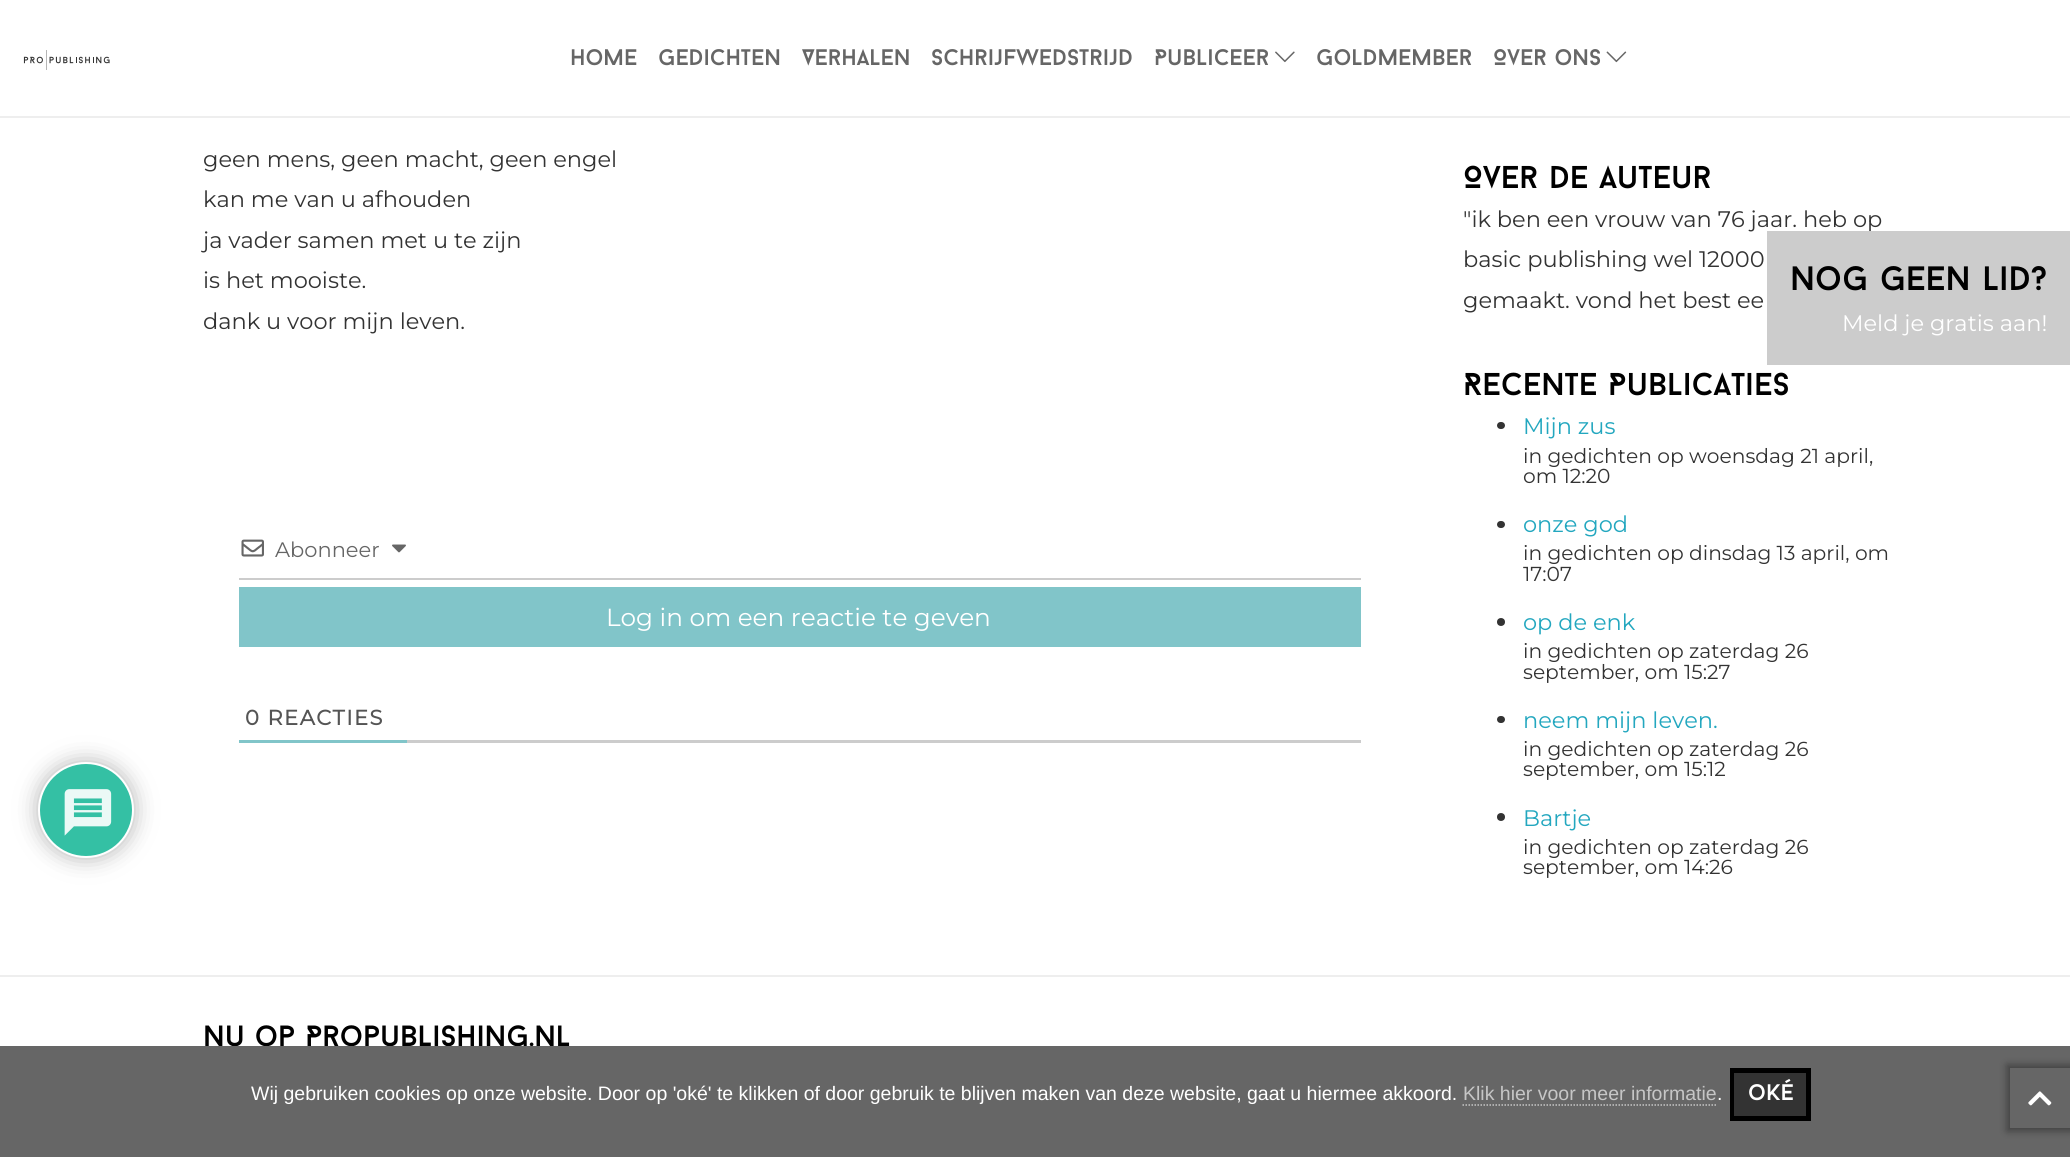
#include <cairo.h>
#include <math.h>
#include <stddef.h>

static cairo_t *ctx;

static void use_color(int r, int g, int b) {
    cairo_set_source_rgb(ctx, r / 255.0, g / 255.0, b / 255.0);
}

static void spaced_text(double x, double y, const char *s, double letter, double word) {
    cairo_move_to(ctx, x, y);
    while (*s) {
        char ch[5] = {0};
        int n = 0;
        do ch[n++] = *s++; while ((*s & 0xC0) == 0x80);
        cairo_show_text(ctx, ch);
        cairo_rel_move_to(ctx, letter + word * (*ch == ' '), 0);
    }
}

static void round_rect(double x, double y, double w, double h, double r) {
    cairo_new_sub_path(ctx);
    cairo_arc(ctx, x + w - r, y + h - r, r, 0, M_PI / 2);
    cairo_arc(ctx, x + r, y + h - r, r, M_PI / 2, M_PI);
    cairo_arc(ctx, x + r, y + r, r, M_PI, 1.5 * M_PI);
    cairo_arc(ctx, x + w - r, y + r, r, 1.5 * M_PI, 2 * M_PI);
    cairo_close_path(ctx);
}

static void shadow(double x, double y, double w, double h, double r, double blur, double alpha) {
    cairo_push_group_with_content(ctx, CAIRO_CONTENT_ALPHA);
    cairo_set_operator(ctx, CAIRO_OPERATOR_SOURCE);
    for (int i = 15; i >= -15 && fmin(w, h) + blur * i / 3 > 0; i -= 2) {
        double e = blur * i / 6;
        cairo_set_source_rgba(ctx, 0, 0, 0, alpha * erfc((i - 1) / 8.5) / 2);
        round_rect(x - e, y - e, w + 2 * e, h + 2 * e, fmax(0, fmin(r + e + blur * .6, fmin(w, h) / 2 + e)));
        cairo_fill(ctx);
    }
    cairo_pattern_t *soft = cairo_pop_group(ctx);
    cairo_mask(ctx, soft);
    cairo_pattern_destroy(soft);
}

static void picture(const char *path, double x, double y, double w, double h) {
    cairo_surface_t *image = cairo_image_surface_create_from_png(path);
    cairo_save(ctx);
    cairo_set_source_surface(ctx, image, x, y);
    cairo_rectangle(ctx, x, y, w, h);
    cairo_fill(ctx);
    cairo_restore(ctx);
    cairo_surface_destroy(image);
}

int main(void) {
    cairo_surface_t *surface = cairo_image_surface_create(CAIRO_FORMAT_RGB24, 2070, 1157);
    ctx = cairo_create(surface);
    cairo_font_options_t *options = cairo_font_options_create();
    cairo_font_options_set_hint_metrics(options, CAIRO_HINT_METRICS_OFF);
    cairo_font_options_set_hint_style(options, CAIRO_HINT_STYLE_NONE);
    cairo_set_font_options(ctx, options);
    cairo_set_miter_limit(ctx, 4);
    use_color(255, 255, 255);
    cairo_paint(ctx);
    use_color(238, 238, 238);
    cairo_rectangle(ctx, 0, 116, 2070, 2);
    cairo_fill(ctx);
    picture("img1.png", 23, 50, 87, 20);
    cairo_select_font_face(ctx, "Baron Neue", CAIRO_FONT_SLANT_NORMAL, CAIRO_FONT_WEIGHT_NORMAL);
    cairo_set_font_size(ctx, 22.5);
    use_color(102, 102, 102);
    cairo_move_to(ctx, 570, 65);
    cairo_show_text(ctx, "Home");
    cairo_move_to(ctx, 658, 65);
    cairo_show_text(ctx, "Gedichten");
    cairo_move_to(ctx, 802, 65);
    cairo_show_text(ctx, "Verhalen");
    cairo_move_to(ctx, 931, 65);
    cairo_show_text(ctx, "Schrijfwedstrijd");
    cairo_move_to(ctx, 1154, 65);
    cairo_show_text(ctx, "Publiceer");
    picture("img2.png", 1275, 51, 20, 12);
    cairo_move_to(ctx, 1316, 65);
    cairo_show_text(ctx, "Goldmember");
    cairo_move_to(ctx, 1493, 65);
    cairo_show_text(ctx, "Over ons");
    picture("img3.png", 1606, 51, 21, 12);
    cairo_select_font_face(ctx, "Montserrat Thin", CAIRO_FONT_SLANT_NORMAL, CAIRO_FONT_WEIGHT_NORMAL);
    use_color(51, 51, 51);
    cairo_move_to(ctx, 203, 167);
    cairo_show_text(ctx, "geen mens, geen macht, geen engel");
    cairo_move_to(ctx, 203, 207);
    cairo_show_text(ctx, "kan me van u afhouden");
    cairo_move_to(ctx, 203, 248);
    cairo_show_text(ctx, "ja vader samen met u te zijn");
    cairo_move_to(ctx, 203, 288);
    cairo_show_text(ctx, "is het mooiste.");
    cairo_move_to(ctx, 203, 329);
    cairo_show_text(ctx, "dank u voor mijn leven.");
    use_color(204, 204, 204);
    cairo_rectangle(ctx, 239, 578, 1122, 2);
    cairo_fill(ctx);
    picture("img4.png", 241, 539, 23, 18);
    cairo_set_font_size(ctx, 21);
    use_color(102, 102, 102);
    cairo_move_to(ctx, 275, 557);
    cairo_show_text(ctx, "Abonneer");
    picture("img5.png", 392, 544, 14, 9);
    use_color(129, 197, 201);
    cairo_rectangle(ctx, 239, 587, 1122, 60);
    cairo_fill(ctx);
    cairo_set_font_size(ctx, 24.75);
    use_color(255, 255, 255);
    cairo_move_to(ctx, 606, 626);
    cairo_show_text(ctx, "Log in om een reactie te geven");
    use_color(204, 204, 204);
    cairo_rectangle(ctx, 407, 740, 954, 3);
    cairo_fill(ctx);
    use_color(129, 197, 201);
    cairo_rectangle(ctx, 239, 740, 168, 3);
    cairo_fill(ctx);
    cairo_select_font_face(ctx, "Montserrat", CAIRO_FONT_SLANT_NORMAL, CAIRO_FONT_WEIGHT_BOLD);
    cairo_set_font_size(ctx, 21);
    use_color(85, 85, 85);
    spaced_text(245, 725, "0 REACTIES", 1.5, 0);
    cairo_select_font_face(ctx, "Baron Neue", CAIRO_FONT_SLANT_NORMAL, CAIRO_FONT_WEIGHT_NORMAL);
    cairo_set_font_size(ctx, 31.5);
    use_color(0, 0, 0);
    cairo_move_to(ctx, 1463, 188);
    cairo_show_text(ctx, "Over de auteur");
    cairo_select_font_face(ctx, "Montserrat Thin", CAIRO_FONT_SLANT_NORMAL, CAIRO_FONT_WEIGHT_NORMAL);
    cairo_set_font_size(ctx, 22.5);
    use_color(51, 51, 51);
    cairo_move_to(ctx, 1463, 227);
    cairo_show_text(ctx, "\"ik ben een vrouw van 76 jaar. heb op");
    cairo_move_to(ctx, 1463, 267);
    cairo_show_text(ctx, "basic publishing wel 12000");
    cairo_move_to(ctx, 1463, 308);
    cairo_show_text(ctx, "gemaakt. vond het best ee");
    cairo_select_font_face(ctx, "Baron Neue", CAIRO_FONT_SLANT_NORMAL, CAIRO_FONT_WEIGHT_NORMAL);
    cairo_set_font_size(ctx, 31.5);
    use_color(0, 0, 0);
    cairo_move_to(ctx, 1463, 395);
    cairo_show_text(ctx, "Recente Publicaties");
    use_color(51, 51, 51);
    round_rect(1497, 422, 8, 7, 3.5);
    cairo_fill(ctx);
    cairo_select_font_face(ctx, "Montserrat Thin", CAIRO_FONT_SLANT_NORMAL, CAIRO_FONT_WEIGHT_NORMAL);
    cairo_set_font_size(ctx, 22.5);
    use_color(35, 167, 191);
    cairo_move_to(ctx, 1523, 434);
    cairo_show_text(ctx, "Mijn zus");
    cairo_set_font_size(ctx, 20.25);
    use_color(51, 51, 51);
    cairo_move_to(ctx, 1523, 463);
    cairo_show_text(ctx, "in gedichten op woensdag 21 april,");
    cairo_move_to(ctx, 1523, 483);
    cairo_show_text(ctx, "om 12:20");
    round_rect(1497, 521, 8, 7, 3.5);
    cairo_fill(ctx);
    cairo_set_font_size(ctx, 22.5);
    use_color(35, 167, 191);
    cairo_move_to(ctx, 1523, 532);
    cairo_show_text(ctx, "onze god");
    cairo_set_font_size(ctx, 20.25);
    use_color(51, 51, 51);
    cairo_move_to(ctx, 1523, 560);
    cairo_show_text(ctx, "in gedichten op dinsdag 13 april, om");
    cairo_move_to(ctx, 1523, 581);
    cairo_show_text(ctx, "17:07");
    cairo_new_path(ctx);
    cairo_arc(ctx, 1501, 622, 4, 0, 2 * M_PI);
    cairo_fill(ctx);
    cairo_set_font_size(ctx, 22.5);
    use_color(35, 167, 191);
    cairo_move_to(ctx, 1523, 630);
    cairo_show_text(ctx, "op de enk");
    cairo_set_font_size(ctx, 20.25);
    use_color(51, 51, 51);
    cairo_move_to(ctx, 1523, 658);
    cairo_show_text(ctx, "in gedichten op zaterdag 26");
    cairo_move_to(ctx, 1523, 679);
    cairo_show_text(ctx, "september, om 15:27");
    round_rect(1497, 716, 8, 7, 3.5);
    cairo_fill(ctx);
    cairo_set_font_size(ctx, 22.5);
    use_color(35, 167, 191);
    cairo_move_to(ctx, 1523, 728);
    cairo_show_text(ctx, "neem mijn leven.");
    cairo_set_font_size(ctx, 20.25);
    use_color(51, 51, 51);
    cairo_move_to(ctx, 1523, 756);
    cairo_show_text(ctx, "in gedichten op zaterdag 26");
    cairo_move_to(ctx, 1523, 776);
    cairo_show_text(ctx, "september, om 15:12");
    cairo_new_path(ctx);
    cairo_arc(ctx, 1501, 817, 4, 0, 2 * M_PI);
    cairo_fill(ctx);
    cairo_set_font_size(ctx, 22.5);
    use_color(35, 167, 191);
    cairo_move_to(ctx, 1523, 826);
    cairo_show_text(ctx, "Bartje");
    cairo_set_font_size(ctx, 20.25);
    use_color(51, 51, 51);
    cairo_move_to(ctx, 1523, 854);
    cairo_show_text(ctx, "in gedichten op zaterdag 26");
    cairo_move_to(ctx, 1523, 874);
    cairo_show_text(ctx, "september, om 14:26");
    use_color(238, 238, 238);
    cairo_rectangle(ctx, 0, 975, 2070, 2);
    cairo_fill(ctx);
    cairo_select_font_face(ctx, "Baron Neue", CAIRO_FONT_SLANT_NORMAL, CAIRO_FONT_WEIGHT_NORMAL);
    cairo_set_font_size(ctx, 29.25);
    use_color(0, 0, 0);
    cairo_move_to(ctx, 203, 1046);
    cairo_show_text(ctx, "Nu op Propublishing.nl");
    use_color(102, 102, 102);
    cairo_rectangle(ctx, 0, 1046, 2070, 111);
    cairo_fill(ctx);
    use_color(0, 0, 0);
    shadow(2007, 1065, 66, 66, 0, 4, 0.37);
    use_color(102, 102, 102);
    cairo_rectangle(ctx, 2010, 1068, 60, 60);
    cairo_fill(ctx);
    picture("img6.png", 2028, 1091, 24, 15);
    use_color(204, 204, 204);
    cairo_rectangle(ctx, 1767, 231, 303, 134);
    cairo_fill(ctx);
    cairo_set_font_size(ctx, 33.75);
    use_color(0, 0, 0);
    cairo_move_to(ctx, 1790, 290);
    cairo_show_text(ctx, "Nog geen lid?");
    cairo_select_font_face(ctx, "Montserrat Thin", CAIRO_FONT_SLANT_NORMAL, CAIRO_FONT_WEIGHT_NORMAL);
    cairo_set_font_size(ctx, 22.5);
    use_color(255, 255, 255);
    cairo_move_to(ctx, 1842, 331);
    cairo_show_text(ctx, "Meld je gratis aan!");
    use_color(179, 179, 179);
    shadow(38, 762, 96, 96, 48, 11, 1);
    use_color(52, 192, 164);
    cairo_arc(ctx, 86, 810, 47, 0, 2 * M_PI);
    cairo_fill_preserve(ctx);
    use_color(255, 255, 255);
    cairo_stroke(ctx);
    picture("img7.png", 64, 789, 48, 47);
    cairo_select_font_face(ctx, "Liberation Sans", CAIRO_FONT_SLANT_NORMAL, CAIRO_FONT_WEIGHT_NORMAL);
    cairo_set_font_size(ctx, 19.5);
    cairo_move_to(ctx, 251, 1100);
    cairo_show_text(ctx, "Wij gebruiken cookies op onze website. Door op 'oké' te klikken of door gebruik te blijven maken van deze website, gaat u hiermee akkoord.");
    use_color(198, 198, 198);
    cairo_move_to(ctx, 1463, 1100);
    cairo_show_text(ctx, "Klik hier voor meer informatie");
    cairo_new_path(ctx);
    cairo_move_to(ctx, 1462.5, 1105);
    cairo_line_to(ctx, 1716, 1105);
    cairo_set_line_width(ctx, 1.5);
    cairo_set_dash(ctx, (double[]){1.5, 1.5}, 2, 0);
    cairo_stroke(ctx);
    use_color(255, 255, 255);
    cairo_move_to(ctx, 1717, 1100);
    cairo_show_text(ctx, ".");
    use_color(51, 51, 51);
    cairo_rectangle(ctx, 1734, 1073, 72, 43);
    cairo_fill(ctx);
    cairo_rectangle(ctx, 1731.5, 1069.5, 78, 50);
    use_color(0, 0, 0);
    cairo_set_line_width(ctx, 3);
    cairo_set_dash(ctx, NULL, 0, 0);
    cairo_stroke(ctx);
    cairo_rectangle(ctx, 1732.5, 1071.5, 75, 46);
    cairo_stroke(ctx);
    cairo_select_font_face(ctx, "Baron Neue", CAIRO_FONT_SLANT_NORMAL, CAIRO_FONT_WEIGHT_NORMAL);
    cairo_set_font_size(ctx, 22.5);
    use_color(255, 255, 255);
    cairo_move_to(ctx, 1748, 1100);
    cairo_show_text(ctx, "oké");
    cairo_surface_write_to_png(surface, "result.png");
    cairo_font_options_destroy(options);
    cairo_destroy(ctx);
    cairo_surface_destroy(surface);
    return 0;
}
